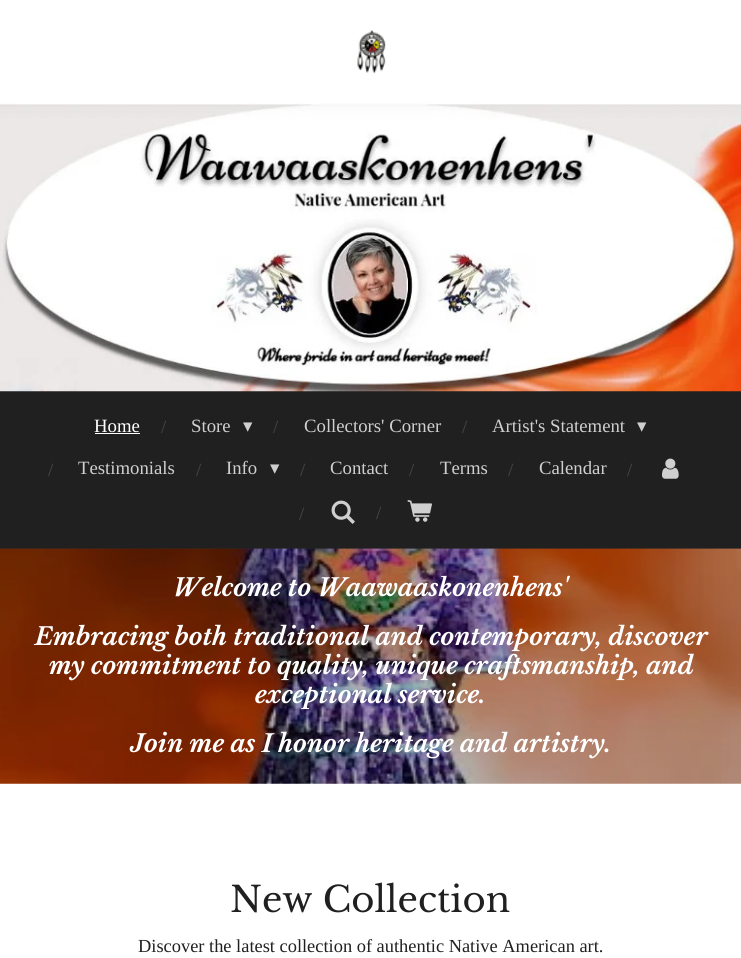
#include <cairo.h>
#include <math.h>
#include <stddef.h>

static cairo_t *ctx;

static void use_color(int r, int g, int b) {
    cairo_set_source_rgb(ctx, r / 255.0, g / 255.0, b / 255.0);
}

static void picture(const char *path, double x, double y, double w, double h) {
    cairo_surface_t *image = cairo_image_surface_create_from_png(path);
    cairo_save(ctx);
    cairo_set_source_surface(ctx, image, x, y);
    cairo_rectangle(ctx, x, y, w, h);
    cairo_fill(ctx);
    cairo_restore(ctx);
    cairo_surface_destroy(image);
}

int main(void) {
    cairo_surface_t *surface = cairo_image_surface_create(CAIRO_FORMAT_RGB24, 741, 958);
    ctx = cairo_create(surface);
    cairo_font_options_t *options = cairo_font_options_create();
    cairo_font_options_set_hint_metrics(options, CAIRO_HINT_METRICS_OFF);
    cairo_font_options_set_hint_style(options, CAIRO_HINT_STYLE_NONE);
    cairo_set_font_options(ctx, options);
    cairo_set_miter_limit(ctx, 4);
    use_color(255, 255, 255);
    cairo_paint(ctx);
    picture("img1.png", 357, 30, 29, 44);
    use_color(32, 32, 32);
    cairo_rectangle(ctx, 0, 391, 741, 158);
    cairo_fill(ctx);
    picture("img2.png", 0, 103, 741, 289);
    cairo_select_font_face(ctx, "Liberation Serif", CAIRO_FONT_SLANT_NORMAL, CAIRO_FONT_WEIGHT_NORMAL);
    cairo_set_font_size(ctx, 18.75);
    use_color(255, 255, 255);
    cairo_move_to(ctx, 94, 432);
    cairo_show_text(ctx, "Home");
    cairo_rectangle(ctx, 95, 433, 45, 1);
    cairo_fill(ctx);
    use_color(70, 70, 70);
    cairo_move_to(ctx, 161, 433);
    cairo_show_text(ctx, "/");
    use_color(207, 207, 207);
    cairo_move_to(ctx, 191, 432);
    cairo_show_text(ctx, "Store");
    cairo_select_font_face(ctx, "DejaVu Sans", CAIRO_FONT_SLANT_NORMAL, CAIRO_FONT_WEIGHT_NORMAL);
    cairo_move_to(ctx, 243, 432);
    cairo_show_text(ctx, "▾");
    cairo_select_font_face(ctx, "Liberation Serif", CAIRO_FONT_SLANT_NORMAL, CAIRO_FONT_WEIGHT_NORMAL);
    use_color(70, 70, 70);
    cairo_move_to(ctx, 273, 433);
    cairo_show_text(ctx, "/");
    use_color(207, 207, 207);
    cairo_move_to(ctx, 304, 432);
    cairo_show_text(ctx, "Collectors' Corner");
    use_color(70, 70, 70);
    cairo_move_to(ctx, 462, 433);
    cairo_show_text(ctx, "/");
    use_color(207, 207, 207);
    cairo_move_to(ctx, 492, 432);
    cairo_show_text(ctx, "Artist's Statement");
    cairo_select_font_face(ctx, "DejaVu Sans", CAIRO_FONT_SLANT_NORMAL, CAIRO_FONT_WEIGHT_NORMAL);
    cairo_move_to(ctx, 637, 432);
    cairo_show_text(ctx, "▾");
    cairo_select_font_face(ctx, "Liberation Serif", CAIRO_FONT_SLANT_NORMAL, CAIRO_FONT_WEIGHT_NORMAL);
    use_color(70, 70, 70);
    cairo_move_to(ctx, 48, 476);
    cairo_show_text(ctx, "/");
    use_color(207, 207, 207);
    cairo_move_to(ctx, 78, 474);
    cairo_show_text(ctx, "Testimonials");
    use_color(70, 70, 70);
    cairo_move_to(ctx, 196, 476);
    cairo_show_text(ctx, "/");
    use_color(207, 207, 207);
    cairo_move_to(ctx, 226, 474);
    cairo_show_text(ctx, "Info");
    cairo_select_font_face(ctx, "DejaVu Sans", CAIRO_FONT_SLANT_NORMAL, CAIRO_FONT_WEIGHT_NORMAL);
    cairo_move_to(ctx, 270, 474);
    cairo_show_text(ctx, "▾");
    cairo_select_font_face(ctx, "Liberation Serif", CAIRO_FONT_SLANT_NORMAL, CAIRO_FONT_WEIGHT_NORMAL);
    use_color(70, 70, 70);
    cairo_move_to(ctx, 300, 476);
    cairo_show_text(ctx, "/");
    use_color(207, 207, 207);
    cairo_move_to(ctx, 330, 474);
    cairo_show_text(ctx, "Contact");
    use_color(70, 70, 70);
    cairo_move_to(ctx, 409, 476);
    cairo_show_text(ctx, "/");
    use_color(207, 207, 207);
    cairo_move_to(ctx, 440, 474);
    cairo_show_text(ctx, "Terms");
    use_color(70, 70, 70);
    cairo_move_to(ctx, 508, 476);
    cairo_show_text(ctx, "/");
    use_color(207, 207, 207);
    cairo_move_to(ctx, 539, 474);
    cairo_show_text(ctx, "Calendar");
    use_color(70, 70, 70);
    cairo_move_to(ctx, 627, 476);
    cairo_show_text(ctx, "/");
    picture("img3.png", 662, 458, 17, 21);
    cairo_move_to(ctx, 299, 520);
    cairo_show_text(ctx, "/");
    picture("img4.png", 331, 500, 24, 24);
    cairo_move_to(ctx, 376, 519);
    cairo_show_text(ctx, "/");
    picture("img5.png", 407, 500, 25, 22);
    picture("img6.png", 0, 548, 741, 236);
    cairo_select_font_face(ctx, "Libre Baskerville", CAIRO_FONT_SLANT_ITALIC, CAIRO_FONT_WEIGHT_BOLD);
    cairo_set_font_size(ctx, 24.4);
    use_color(255, 255, 255);
    cairo_move_to(ctx, 173, 596);
    cairo_show_text(ctx, "Welcome to Waawaaskonenhens'");
    cairo_move_to(ctx, 35, 645);
    cairo_show_text(ctx, "Embracing both traditional and contemporary, discover");
    cairo_move_to(ctx, 49, 674);
    cairo_show_text(ctx, "my commitment to quality, unique craftsmanship, and");
    cairo_move_to(ctx, 255, 703);
    cairo_show_text(ctx, "exceptional service.");
    cairo_move_to(ctx, 130, 752);
    cairo_show_text(ctx, "Join me as I honor heritage and artistry.");
    cairo_select_font_face(ctx, "Libre Baskerville", CAIRO_FONT_SLANT_NORMAL, CAIRO_FONT_WEIGHT_NORMAL);
    cairo_set_font_size(ctx, 35.5);
    use_color(32, 32, 32);
    cairo_move_to(ctx, 230, 912);
    cairo_show_text(ctx, "New Collection");
    cairo_select_font_face(ctx, "Liberation Serif", CAIRO_FONT_SLANT_NORMAL, CAIRO_FONT_WEIGHT_NORMAL);
    cairo_set_font_size(ctx, 18.4);
    cairo_move_to(ctx, 138, 952);
    cairo_show_text(ctx, "Discover the latest collection of authentic Native American art.");
    cairo_surface_write_to_png(surface, "result.png");
    cairo_font_options_destroy(options);
    cairo_destroy(ctx);
    cairo_surface_destroy(surface);
    return 0;
}
